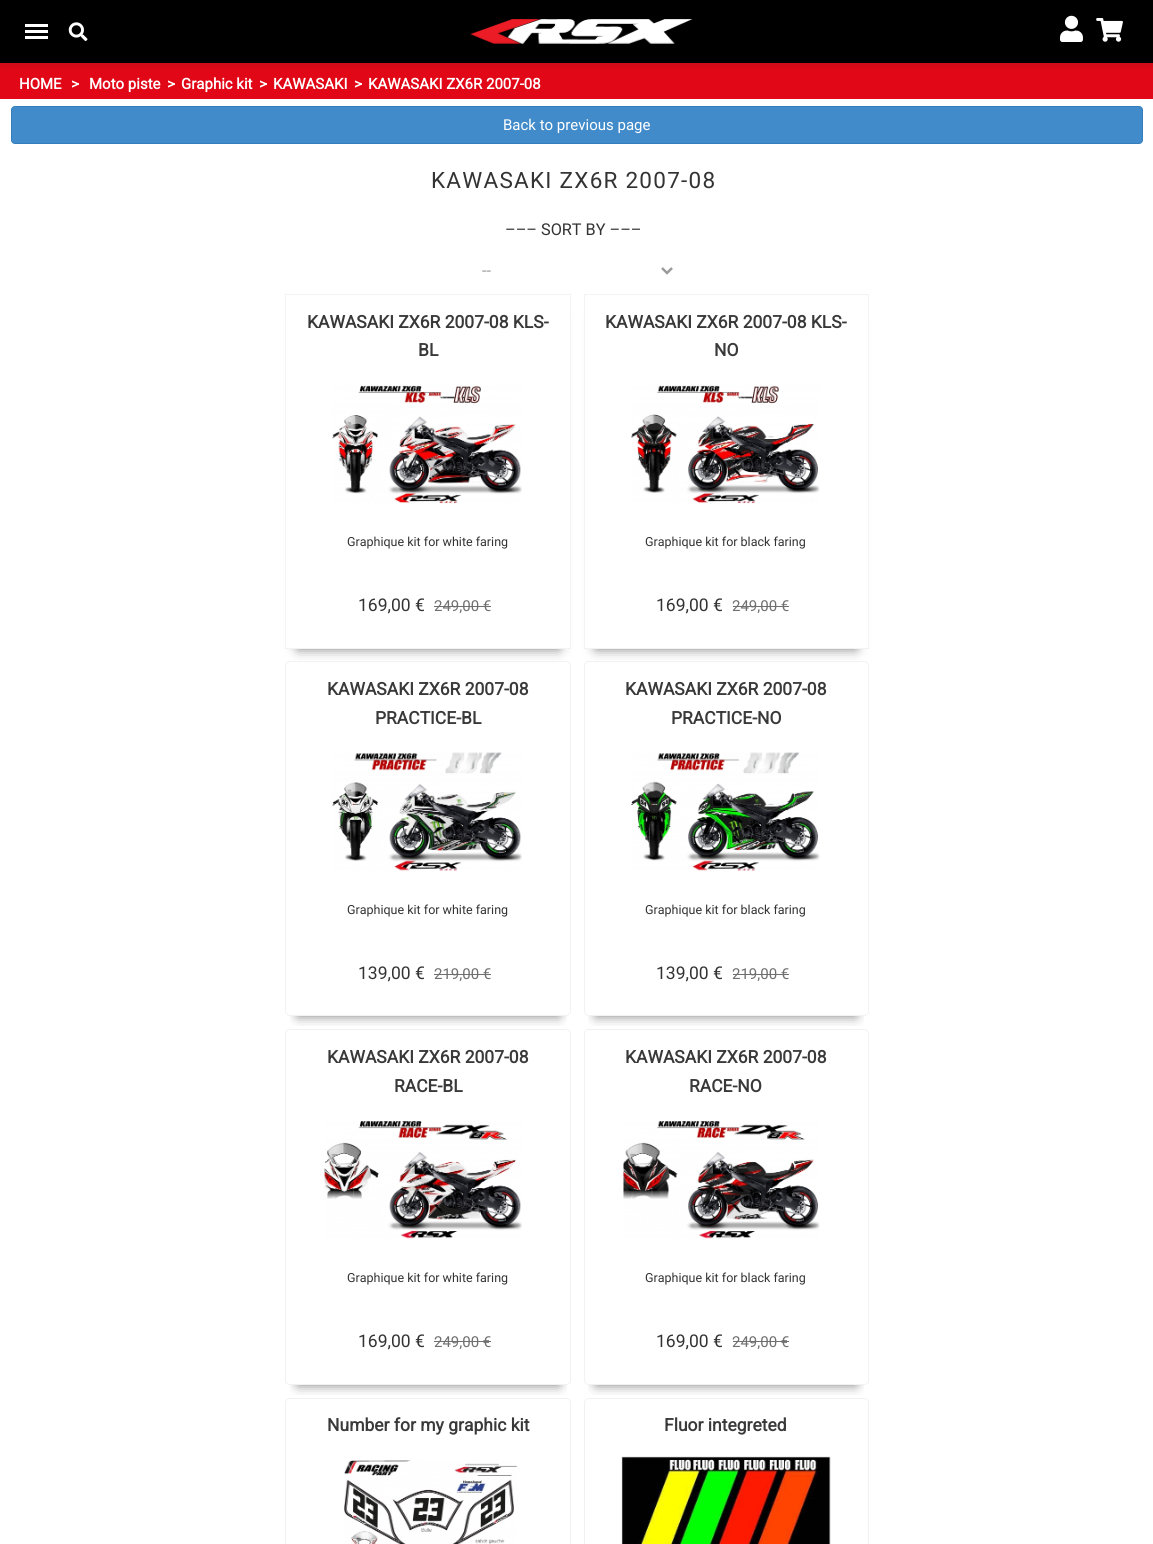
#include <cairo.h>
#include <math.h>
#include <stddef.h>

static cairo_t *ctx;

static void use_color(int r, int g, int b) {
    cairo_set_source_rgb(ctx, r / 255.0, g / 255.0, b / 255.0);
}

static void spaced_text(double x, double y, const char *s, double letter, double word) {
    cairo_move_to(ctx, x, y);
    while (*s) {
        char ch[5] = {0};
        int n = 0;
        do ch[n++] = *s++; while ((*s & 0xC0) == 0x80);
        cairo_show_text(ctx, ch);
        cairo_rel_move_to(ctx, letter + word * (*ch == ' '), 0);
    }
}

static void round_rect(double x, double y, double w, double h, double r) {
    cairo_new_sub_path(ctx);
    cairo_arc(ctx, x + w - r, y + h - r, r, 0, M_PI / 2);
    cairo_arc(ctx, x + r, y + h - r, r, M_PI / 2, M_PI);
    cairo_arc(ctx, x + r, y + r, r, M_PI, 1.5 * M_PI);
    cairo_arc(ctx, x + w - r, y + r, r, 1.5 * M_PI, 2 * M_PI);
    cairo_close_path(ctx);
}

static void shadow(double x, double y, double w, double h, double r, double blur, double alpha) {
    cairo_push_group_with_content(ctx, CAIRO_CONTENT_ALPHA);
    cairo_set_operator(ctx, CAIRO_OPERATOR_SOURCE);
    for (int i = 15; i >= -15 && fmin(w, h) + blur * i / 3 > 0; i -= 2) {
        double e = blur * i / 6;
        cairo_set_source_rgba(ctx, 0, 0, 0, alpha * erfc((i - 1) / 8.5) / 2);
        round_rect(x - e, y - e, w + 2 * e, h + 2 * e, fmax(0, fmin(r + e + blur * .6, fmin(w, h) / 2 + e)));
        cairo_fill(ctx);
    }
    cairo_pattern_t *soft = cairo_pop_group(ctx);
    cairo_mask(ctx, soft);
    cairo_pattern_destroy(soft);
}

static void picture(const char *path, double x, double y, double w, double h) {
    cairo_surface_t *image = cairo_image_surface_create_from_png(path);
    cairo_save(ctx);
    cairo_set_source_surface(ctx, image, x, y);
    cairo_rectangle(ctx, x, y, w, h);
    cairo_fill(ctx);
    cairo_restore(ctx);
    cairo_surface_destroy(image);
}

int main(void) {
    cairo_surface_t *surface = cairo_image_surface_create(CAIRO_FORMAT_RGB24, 1153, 1544);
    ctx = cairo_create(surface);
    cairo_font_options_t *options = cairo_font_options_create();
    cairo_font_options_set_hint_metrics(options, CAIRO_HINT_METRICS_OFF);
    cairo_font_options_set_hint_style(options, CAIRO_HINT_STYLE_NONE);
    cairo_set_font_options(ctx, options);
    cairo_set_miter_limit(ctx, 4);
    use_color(255, 255, 255);
    cairo_paint(ctx);
    use_color(225, 7, 22);
    cairo_rectangle(ctx, 0, 63, 1153, 36);
    cairo_fill(ctx);
    use_color(51, 51, 51);
    shadow(1, 4, 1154, 62, 0, 3, 0.12);
    use_color(0, 0, 0);
    cairo_rectangle(ctx, 0, 0, 1153, 63);
    cairo_fill(ctx);
    picture("img1.png", 470, 19, 223, 25);
    picture("img2.png", 1060, 15, 23, 27);
    picture("img3.png", 1096, 18, 27, 24);
    use_color(255, 255, 255);
    cairo_rectangle(ctx, 25, 30, 23, 3);
    cairo_fill(ctx);
    cairo_rectangle(ctx, 25, 24, 23, 3);
    cairo_fill(ctx);
    cairo_rectangle(ctx, 25, 36, 23, 3);
    cairo_fill(ctx);
    picture("img4.png", 68, 22, 20, 19);
    cairo_select_font_face(ctx, "Roboto", CAIRO_FONT_SLANT_NORMAL, CAIRO_FONT_WEIGHT_BOLD);
    cairo_set_font_size(ctx, 15);
    cairo_move_to(ctx, 19, 89);
    cairo_show_text(ctx, "HOME");
    cairo_move_to(ctx, 71, 89);
    cairo_show_text(ctx, ">");
    cairo_move_to(ctx, 89, 89);
    cairo_show_text(ctx, "Moto piste");
    cairo_move_to(ctx, 167, 89);
    cairo_show_text(ctx, ">");
    cairo_move_to(ctx, 181, 89);
    cairo_show_text(ctx, "Graphic kit");
    cairo_move_to(ctx, 259, 89);
    cairo_show_text(ctx, ">");
    cairo_move_to(ctx, 273, 89);
    cairo_show_text(ctx, "KAWASAKI");
    cairo_move_to(ctx, 354, 89);
    cairo_show_text(ctx, ">");
    cairo_move_to(ctx, 368, 89);
    cairo_show_text(ctx, "KAWASAKI ZX6R 2007-08");
    use_color(66, 139, 202);
    round_rect(11.5, 106.5, 1131, 37, 3.5);
    cairo_fill_preserve(ctx);
    use_color(53, 126, 189);
    cairo_set_line_width(ctx, 1);
    cairo_stroke(ctx);
    cairo_select_font_face(ctx, "Roboto", CAIRO_FONT_SLANT_NORMAL, CAIRO_FONT_WEIGHT_NORMAL);
    use_color(255, 255, 255);
    cairo_move_to(ctx, 503, 130);
    cairo_show_text(ctx, "Back to previous page");
    cairo_set_font_size(ctx, 22.5);
    use_color(51, 51, 51);
    spaced_text(431, 188, "KAWASAKI ZX6R 2007-08", 1.25, 0);
    cairo_set_font_size(ctx, 16.25);
    cairo_move_to(ctx, 505, 235);
    cairo_show_text(ctx, "––– SORT BY –––");
    cairo_new_path(ctx);
    cairo_move_to(ctx, 662, 268);
    cairo_line_to(ctx, 667, 273);
    cairo_line_to(ctx, 672, 268);
    use_color(156, 155, 155);
    cairo_set_line_width(ctx, 2.5);
    cairo_stroke(ctx);
    cairo_move_to(ctx, 482, 276);
    cairo_show_text(ctx, "--");
    cairo_save(ctx);
    cairo_set_fill_rule(ctx, CAIRO_FILL_RULE_EVEN_ODD);
    cairo_new_path(ctx);
    cairo_move_to(ctx, 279, 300);
    cairo_line_to(ctx, 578, 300);
    cairo_line_to(ctx, 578, 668);
    cairo_line_to(ctx, 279, 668);
    cairo_close_path(ctx);
    cairo_move_to(ctx, 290, 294);
    cairo_line_to(ctx, 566, 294);
    cairo_curve_to(ctx, 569, 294, 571, 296, 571, 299);
    cairo_line_to(ctx, 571, 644);
    cairo_curve_to(ctx, 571, 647, 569, 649, 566, 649);
    cairo_line_to(ctx, 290, 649);
    cairo_curve_to(ctx, 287, 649, 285, 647, 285, 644);
    cairo_line_to(ctx, 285, 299);
    cairo_curve_to(ctx, 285, 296, 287, 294, 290, 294);
    cairo_close_path(ctx);
    cairo_clip(ctx);
    use_color(0, 0, 0);
    shadow(298, 319, 261, 330, 0, 6, 0.5);
    cairo_restore(ctx);
    cairo_rectangle(ctx, 285.5, 294.5, 285, 354);
    cairo_set_source_rgba(ctx, 0.2, 0.2, 0.2, 0.06);
    cairo_set_line_width(ctx, 1);
    cairo_stroke(ctx);
    cairo_select_font_face(ctx, "Roboto", CAIRO_FONT_SLANT_NORMAL, CAIRO_FONT_WEIGHT_BOLD);
    cairo_set_font_size(ctx, 17.5);
    use_color(58, 57, 57);
    cairo_move_to(ctx, 307, 328);
    cairo_show_text(ctx, "KAWASAKI ZX6R 2007-08 KLS-");
    cairo_move_to(ctx, 418, 356);
    cairo_show_text(ctx, "BL");
    picture("img5.png", 332, 385, 190, 119);
    cairo_select_font_face(ctx, "Roboto", CAIRO_FONT_SLANT_NORMAL, CAIRO_FONT_WEIGHT_NORMAL);
    cairo_set_font_size(ctx, 12.5);
    use_color(51, 51, 51);
    cairo_move_to(ctx, 347, 546);
    cairo_show_text(ctx, "Graphique kit for white faring");
    cairo_set_font_size(ctx, 17.5);
    cairo_move_to(ctx, 358, 611);
    cairo_show_text(ctx, "169,00 €");
    cairo_set_font_size(ctx, 15);
    use_color(111, 111, 111);
    cairo_move_to(ctx, 434, 611);
    cairo_show_text(ctx, "249,00 €");
    cairo_rectangle(ctx, 434, 606, 57, 1);
    cairo_fill(ctx);
    cairo_save(ctx);
    cairo_set_fill_rule(ctx, CAIRO_FILL_RULE_EVEN_ODD);
    cairo_new_path(ctx);
    cairo_move_to(ctx, 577, 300);
    cairo_line_to(ctx, 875, 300);
    cairo_line_to(ctx, 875, 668);
    cairo_line_to(ctx, 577, 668);
    cairo_close_path(ctx);
    cairo_move_to(ctx, 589, 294);
    cairo_line_to(ctx, 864, 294);
    cairo_curve_to(ctx, 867, 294, 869, 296, 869, 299);
    cairo_line_to(ctx, 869, 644);
    cairo_curve_to(ctx, 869, 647, 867, 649, 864, 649);
    cairo_line_to(ctx, 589, 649);
    cairo_curve_to(ctx, 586, 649, 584, 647, 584, 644);
    cairo_line_to(ctx, 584, 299);
    cairo_curve_to(ctx, 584, 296, 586, 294, 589, 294);
    cairo_close_path(ctx);
    cairo_clip(ctx);
    use_color(0, 0, 0);
    shadow(596, 319, 260, 330, 0, 6, 0.5);
    cairo_restore(ctx);
    cairo_rectangle(ctx, 584.5, 294.5, 284, 354);
    cairo_set_source_rgba(ctx, 0.2, 0.2, 0.2, 0.06);
    cairo_stroke(ctx);
    cairo_select_font_face(ctx, "Roboto", CAIRO_FONT_SLANT_NORMAL, CAIRO_FONT_WEIGHT_BOLD);
    cairo_set_font_size(ctx, 17.5);
    use_color(58, 57, 57);
    cairo_move_to(ctx, 605, 328);
    cairo_show_text(ctx, "KAWASAKI ZX6R 2007-08 KLS-");
    cairo_move_to(ctx, 714, 356);
    cairo_show_text(ctx, "NO");
    picture("img6.png", 631, 385, 189, 119);
    cairo_select_font_face(ctx, "Roboto", CAIRO_FONT_SLANT_NORMAL, CAIRO_FONT_WEIGHT_NORMAL);
    cairo_set_font_size(ctx, 12.5);
    use_color(51, 51, 51);
    cairo_move_to(ctx, 645, 546);
    cairo_show_text(ctx, "Graphique kit for black faring");
    cairo_set_font_size(ctx, 17.5);
    cairo_move_to(ctx, 656, 611);
    cairo_show_text(ctx, "169,00 €");
    cairo_set_font_size(ctx, 15);
    use_color(111, 111, 111);
    cairo_move_to(ctx, 732, 611);
    cairo_show_text(ctx, "249,00 €");
    cairo_rectangle(ctx, 733, 606, 56, 1);
    cairo_fill(ctx);
    cairo_save(ctx);
    cairo_rectangle(ctx, 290, 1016, 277, 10);
    cairo_clip(ctx);
    use_color(0, 0, 0);
    shadow(298, 686, 261, 330, 0, 6, 0.5);
    cairo_restore(ctx);
    round_rect(285.5, 661.5, 285, 354, 4.5);
    use_color(242, 242, 242);
    cairo_stroke(ctx);
    cairo_select_font_face(ctx, "Roboto", CAIRO_FONT_SLANT_NORMAL, CAIRO_FONT_WEIGHT_BOLD);
    cairo_set_font_size(ctx, 17.5);
    use_color(58, 57, 57);
    cairo_move_to(ctx, 327, 695);
    cairo_show_text(ctx, "KAWASAKI ZX6R 2007-08");
    cairo_move_to(ctx, 375, 724);
    cairo_show_text(ctx, "PRACTICE-BL");
    picture("img7.png", 332, 752, 190, 119);
    cairo_select_font_face(ctx, "Roboto", CAIRO_FONT_SLANT_NORMAL, CAIRO_FONT_WEIGHT_NORMAL);
    cairo_set_font_size(ctx, 12.5);
    use_color(51, 51, 51);
    cairo_move_to(ctx, 347, 914);
    cairo_show_text(ctx, "Graphique kit for white faring");
    cairo_set_font_size(ctx, 17.5);
    cairo_move_to(ctx, 358, 979);
    cairo_show_text(ctx, "139,00 €");
    cairo_set_font_size(ctx, 15);
    use_color(111, 111, 111);
    cairo_move_to(ctx, 434, 979);
    cairo_show_text(ctx, "219,00 €");
    cairo_rectangle(ctx, 434, 974, 57, 1);
    cairo_fill(ctx);
    cairo_save(ctx);
    cairo_rectangle(ctx, 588, 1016, 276, 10);
    cairo_clip(ctx);
    use_color(0, 0, 0);
    shadow(596, 686, 260, 330, 0, 6, 0.5);
    cairo_restore(ctx);
    round_rect(584.5, 661.5, 284, 354, 4.5);
    use_color(242, 242, 242);
    cairo_stroke(ctx);
    cairo_select_font_face(ctx, "Roboto", CAIRO_FONT_SLANT_NORMAL, CAIRO_FONT_WEIGHT_BOLD);
    cairo_set_font_size(ctx, 17.5);
    use_color(58, 57, 57);
    cairo_move_to(ctx, 625, 695);
    cairo_show_text(ctx, "KAWASAKI ZX6R 2007-08");
    cairo_move_to(ctx, 671, 724);
    cairo_show_text(ctx, "PRACTICE-NO");
    picture("img8.png", 631, 752, 189, 119);
    cairo_select_font_face(ctx, "Roboto", CAIRO_FONT_SLANT_NORMAL, CAIRO_FONT_WEIGHT_NORMAL);
    cairo_set_font_size(ctx, 12.5);
    use_color(51, 51, 51);
    cairo_move_to(ctx, 645, 914);
    cairo_show_text(ctx, "Graphique kit for black faring");
    cairo_set_font_size(ctx, 17.5);
    cairo_move_to(ctx, 656, 979);
    cairo_show_text(ctx, "139,00 €");
    cairo_set_font_size(ctx, 15);
    use_color(111, 111, 111);
    cairo_move_to(ctx, 732, 979);
    cairo_show_text(ctx, "219,00 €");
    cairo_rectangle(ctx, 733, 974, 56, 1);
    cairo_fill(ctx);
    cairo_save(ctx);
    cairo_rectangle(ctx, 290, 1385, 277, 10);
    cairo_clip(ctx);
    use_color(0, 0, 0);
    shadow(298, 1054, 261, 331, 0, 6, 0.5);
    cairo_restore(ctx);
    round_rect(285.5, 1029.5, 285, 355, 4.5);
    use_color(242, 242, 242);
    cairo_stroke(ctx);
    cairo_select_font_face(ctx, "Roboto", CAIRO_FONT_SLANT_NORMAL, CAIRO_FONT_WEIGHT_BOLD);
    cairo_set_font_size(ctx, 17.5);
    use_color(58, 57, 57);
    cairo_move_to(ctx, 327, 1063);
    cairo_show_text(ctx, "KAWASAKI ZX6R 2007-08");
    cairo_move_to(ctx, 394, 1092);
    cairo_show_text(ctx, "RACE-BL");
    picture("img9.png", 324, 1121, 198, 118);
    cairo_select_font_face(ctx, "Roboto", CAIRO_FONT_SLANT_NORMAL, CAIRO_FONT_WEIGHT_NORMAL);
    cairo_set_font_size(ctx, 12.5);
    use_color(51, 51, 51);
    cairo_move_to(ctx, 347, 1282);
    cairo_show_text(ctx, "Graphique kit for white faring");
    cairo_set_font_size(ctx, 17.5);
    cairo_move_to(ctx, 358, 1347);
    cairo_show_text(ctx, "169,00 €");
    cairo_set_font_size(ctx, 15);
    use_color(111, 111, 111);
    cairo_move_to(ctx, 434, 1347);
    cairo_show_text(ctx, "249,00 €");
    cairo_rectangle(ctx, 434, 1341, 57, 1);
    cairo_fill(ctx);
    cairo_save(ctx);
    cairo_rectangle(ctx, 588, 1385, 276, 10);
    cairo_clip(ctx);
    use_color(0, 0, 0);
    shadow(596, 1054, 260, 331, 0, 6, 0.5);
    cairo_restore(ctx);
    round_rect(584.5, 1029.5, 284, 355, 4.5);
    use_color(242, 242, 242);
    cairo_stroke(ctx);
    cairo_select_font_face(ctx, "Roboto", CAIRO_FONT_SLANT_NORMAL, CAIRO_FONT_WEIGHT_BOLD);
    cairo_set_font_size(ctx, 17.5);
    use_color(58, 57, 57);
    cairo_move_to(ctx, 625, 1063);
    cairo_show_text(ctx, "KAWASAKI ZX6R 2007-08");
    cairo_move_to(ctx, 689, 1092);
    cairo_show_text(ctx, "RACE-NO");
    picture("img10.png", 622, 1121, 198, 118);
    cairo_select_font_face(ctx, "Roboto", CAIRO_FONT_SLANT_NORMAL, CAIRO_FONT_WEIGHT_NORMAL);
    cairo_set_font_size(ctx, 12.5);
    use_color(51, 51, 51);
    cairo_move_to(ctx, 645, 1282);
    cairo_show_text(ctx, "Graphique kit for black faring");
    cairo_set_font_size(ctx, 17.5);
    cairo_move_to(ctx, 656, 1347);
    cairo_show_text(ctx, "169,00 €");
    cairo_set_font_size(ctx, 15);
    use_color(111, 111, 111);
    cairo_move_to(ctx, 732, 1347);
    cairo_show_text(ctx, "249,00 €");
    cairo_rectangle(ctx, 733, 1341, 56, 1);
    cairo_fill(ctx);
    round_rect(285.5, 1398.5, 285, 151, 4.5);
    use_color(241, 241, 241);
    cairo_stroke(ctx);
    cairo_select_font_face(ctx, "Roboto", CAIRO_FONT_SLANT_NORMAL, CAIRO_FONT_WEIGHT_BOLD);
    cairo_set_font_size(ctx, 17.5);
    use_color(58, 57, 57);
    cairo_move_to(ctx, 327, 1431);
    cairo_show_text(ctx, "Number for my graphic kit");
    picture("img11.png", 344, 1460, 173, 84);
    round_rect(584.5, 1398.5, 284, 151, 4.5);
    use_color(241, 241, 241);
    cairo_stroke(ctx);
    use_color(58, 57, 57);
    cairo_move_to(ctx, 664, 1431);
    cairo_show_text(ctx, "Fluor integreted");
    picture("img12.png", 621, 1456, 210, 88);
    cairo_surface_write_to_png(surface, "result.png");
    cairo_font_options_destroy(options);
    cairo_destroy(ctx);
    cairo_surface_destroy(surface);
    return 0;
}
